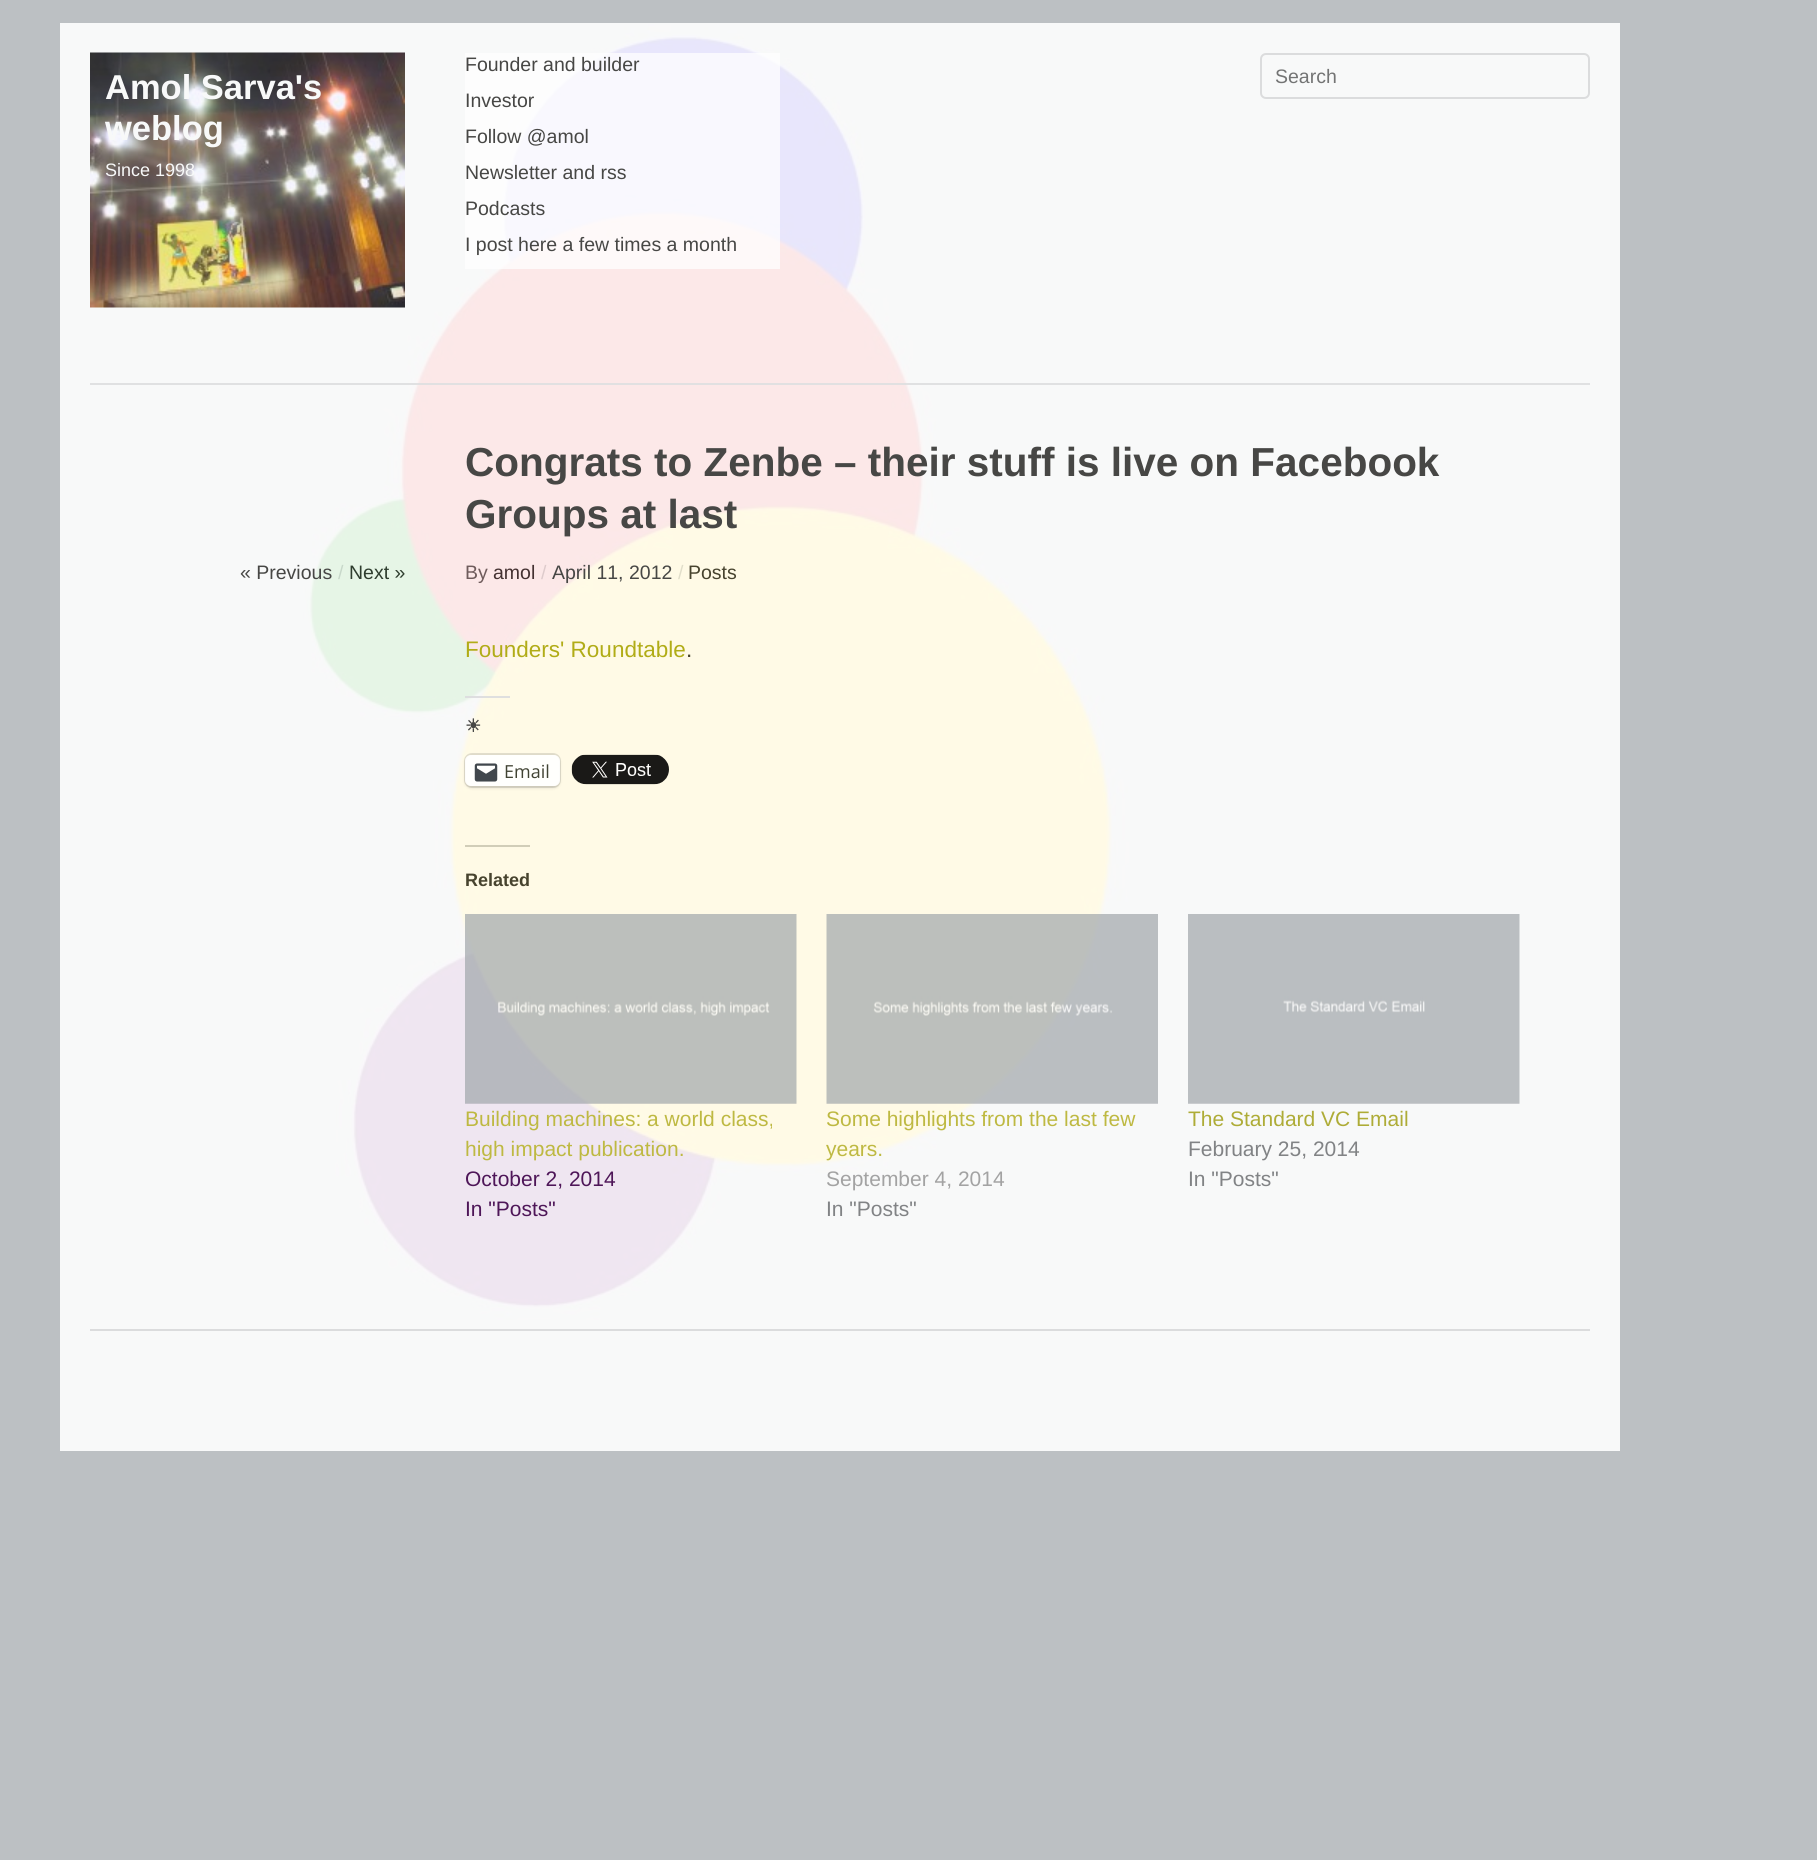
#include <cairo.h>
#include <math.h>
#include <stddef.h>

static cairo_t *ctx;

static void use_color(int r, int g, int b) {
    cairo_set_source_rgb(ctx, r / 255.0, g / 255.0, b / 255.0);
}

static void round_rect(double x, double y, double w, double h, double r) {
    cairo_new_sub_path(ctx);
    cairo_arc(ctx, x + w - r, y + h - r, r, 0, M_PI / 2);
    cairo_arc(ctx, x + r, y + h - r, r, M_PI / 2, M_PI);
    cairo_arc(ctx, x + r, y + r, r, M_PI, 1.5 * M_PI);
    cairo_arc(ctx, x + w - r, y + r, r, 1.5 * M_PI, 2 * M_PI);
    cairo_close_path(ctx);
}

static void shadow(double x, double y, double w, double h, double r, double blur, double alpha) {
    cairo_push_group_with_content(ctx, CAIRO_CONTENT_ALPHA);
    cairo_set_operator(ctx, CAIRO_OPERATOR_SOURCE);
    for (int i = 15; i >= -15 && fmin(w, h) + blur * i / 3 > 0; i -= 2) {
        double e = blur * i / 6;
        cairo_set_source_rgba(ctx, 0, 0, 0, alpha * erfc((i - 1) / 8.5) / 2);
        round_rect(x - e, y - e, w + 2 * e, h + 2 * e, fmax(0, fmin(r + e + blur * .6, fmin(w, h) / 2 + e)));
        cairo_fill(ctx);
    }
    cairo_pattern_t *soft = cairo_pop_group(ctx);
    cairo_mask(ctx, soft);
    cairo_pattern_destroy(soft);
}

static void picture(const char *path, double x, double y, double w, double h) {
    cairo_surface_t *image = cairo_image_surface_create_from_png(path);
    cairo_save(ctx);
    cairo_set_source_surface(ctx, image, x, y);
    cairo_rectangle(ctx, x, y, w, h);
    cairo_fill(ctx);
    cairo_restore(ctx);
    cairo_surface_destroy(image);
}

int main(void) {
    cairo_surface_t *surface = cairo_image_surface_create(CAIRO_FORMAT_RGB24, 1817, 1860);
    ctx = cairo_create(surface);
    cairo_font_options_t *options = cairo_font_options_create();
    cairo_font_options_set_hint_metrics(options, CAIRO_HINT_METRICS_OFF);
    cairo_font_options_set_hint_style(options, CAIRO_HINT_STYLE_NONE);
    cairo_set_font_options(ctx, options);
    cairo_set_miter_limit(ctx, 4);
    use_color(188, 192, 195);
    cairo_paint(ctx);
    use_color(248, 249, 249);
    cairo_rectangle(ctx, 60, 23, 1560, 1428);
    cairo_fill(ctx);
    picture("img1.png", 303, 24, 826, 1296);
    cairo_set_source_rgba(ctx, 0.871, 0.875, 0.878, 0.9);
    cairo_rectangle(ctx, 90, 383, 1500, 2);
    cairo_fill(ctx);
    picture("img2.png", 90, 52, 315, 256);
    cairo_select_font_face(ctx, "Liberation Sans", CAIRO_FONT_SLANT_NORMAL, CAIRO_FONT_WEIGHT_BOLD);
    cairo_set_font_size(ctx, 34.5);
    use_color(248, 249, 249);
    cairo_move_to(ctx, 105, 99);
    cairo_show_text(ctx, "Amol Sarva's");
    cairo_move_to(ctx, 105, 140);
    cairo_show_text(ctx, "weblog");
    cairo_select_font_face(ctx, "Liberation Sans", CAIRO_FONT_SLANT_NORMAL, CAIRO_FONT_WEIGHT_NORMAL);
    cairo_set_font_size(ctx, 18);
    cairo_move_to(ctx, 105, 176);
    cairo_show_text(ctx, "Since 1998");
    cairo_set_source_rgba(ctx, 1, 1, 1, 0.72);
    cairo_rectangle(ctx, 465, 53, 315, 36);
    cairo_fill(ctx);
    cairo_set_font_size(ctx, 19.5);
    use_color(71, 71, 69);
    cairo_move_to(ctx, 465, 71);
    cairo_show_text(ctx, "Founder and builder");
    cairo_set_source_rgba(ctx, 1, 1, 1, 0.72);
    cairo_rectangle(ctx, 465, 89, 315, 36);
    cairo_fill(ctx);
    use_color(71, 71, 69);
    cairo_move_to(ctx, 465, 107);
    cairo_show_text(ctx, "Investor");
    cairo_set_source_rgba(ctx, 1, 1, 1, 0.72);
    cairo_rectangle(ctx, 465, 125, 315, 36);
    cairo_fill(ctx);
    use_color(71, 71, 69);
    cairo_move_to(ctx, 465, 143);
    cairo_show_text(ctx, "Follow @amol");
    cairo_set_source_rgba(ctx, 1, 1, 1, 0.72);
    cairo_rectangle(ctx, 465, 161, 315, 36);
    cairo_fill(ctx);
    use_color(71, 71, 69);
    cairo_move_to(ctx, 465, 179);
    cairo_show_text(ctx, "Newsletter and rss");
    cairo_set_source_rgba(ctx, 1, 1, 1, 0.72);
    cairo_rectangle(ctx, 465, 197, 315, 36);
    cairo_fill(ctx);
    use_color(71, 71, 69);
    cairo_move_to(ctx, 465, 215);
    cairo_show_text(ctx, "Podcasts");
    cairo_set_source_rgba(ctx, 1, 1, 1, 0.72);
    cairo_rectangle(ctx, 465, 233, 315, 36);
    cairo_fill(ctx);
    use_color(71, 71, 69);
    cairo_move_to(ctx, 465, 251);
    cairo_show_text(ctx, "I post here a few times a month");
    round_rect(1261, 54, 328, 44, 5);
    use_color(219, 220, 221);
    cairo_stroke(ctx);
    use_color(115, 116, 116);
    cairo_move_to(ctx, 1275, 83);
    cairo_show_text(ctx, "Search");
    cairo_select_font_face(ctx, "Liberation Sans", CAIRO_FONT_SLANT_NORMAL, CAIRO_FONT_WEIGHT_BOLD);
    cairo_set_font_size(ctx, 40.5);
    use_color(71, 71, 69);
    cairo_move_to(ctx, 465, 476);
    cairo_show_text(ctx, "Congrats to Zenbe – their stuff is live on Facebook");
    cairo_move_to(ctx, 465, 528);
    cairo_show_text(ctx, "Groups at last");
    cairo_select_font_face(ctx, "Liberation Sans", CAIRO_FONT_SLANT_NORMAL, CAIRO_FONT_WEIGHT_NORMAL);
    cairo_set_font_size(ctx, 19.5);
    cairo_move_to(ctx, 240, 579);
    cairo_show_text(ctx, "« Previous");
    use_color(200, 216, 202);
    cairo_move_to(ctx, 338, 579);
    cairo_show_text(ctx, "/");
    use_color(46, 61, 46);
    cairo_move_to(ctx, 349, 579);
    cairo_show_text(ctx, "Next »");
    use_color(111, 92, 92);
    cairo_move_to(ctx, 465, 579);
    cairo_show_text(ctx, "By");
    use_color(68, 49, 49);
    cairo_move_to(ctx, 493, 579);
    cairo_show_text(ctx, "amol");
    use_color(222, 203, 204);
    cairo_move_to(ctx, 541, 579);
    cairo_show_text(ctx, "/");
    use_color(71, 71, 69);
    cairo_move_to(ctx, 552, 579);
    cairo_show_text(ctx, "April 11, 2012");
    use_color(225, 222, 202);
    cairo_move_to(ctx, 678, 579);
    cairo_show_text(ctx, "/");
    use_color(71, 67, 46);
    cairo_move_to(ctx, 688, 579);
    cairo_show_text(ctx, "Posts");
    cairo_set_font_size(ctx, 22.5);
    use_color(177, 172, 23);
    cairo_move_to(ctx, 465, 657);
    cairo_show_text(ctx, "Founders' Roundtable");
    use_color(71, 67, 46);
    cairo_move_to(ctx, 686, 657);
    cairo_show_text(ctx, ".");
    cairo_set_source_rgba(ctx, 0.863, 0.863, 0.871, 0.9);
    cairo_rectangle(ctx, 465, 696, 45, 2);
    cairo_fill(ctx);
    cairo_select_font_face(ctx, "DejaVu Sans", CAIRO_FONT_SLANT_NORMAL, CAIRO_FONT_WEIGHT_BOLD);
    cairo_set_font_size(ctx, 18);
    use_color(71, 71, 69);
    cairo_move_to(ctx, 465, 732);
    cairo_show_text(ctx, "☀");
    round_rect(465, 754, 95, 33, 7);
    use_color(227, 223, 205);
    cairo_stroke(ctx);
    cairo_save(ctx);
    cairo_set_fill_rule(ctx, CAIRO_FILL_RULE_EVEN_ODD);
    cairo_new_path(ctx);
    cairo_move_to(ctx, 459, 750);
    cairo_line_to(ctx, 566, 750);
    cairo_line_to(ctx, 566, 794);
    cairo_line_to(ctx, 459, 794);
    cairo_close_path(ctx);
    cairo_move_to(ctx, 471, 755);
    cairo_line_to(ctx, 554, 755);
    cairo_curve_to(ctx, 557.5, 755, 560, 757.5, 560, 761);
    cairo_line_to(ctx, 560, 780);
    cairo_curve_to(ctx, 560, 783.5, 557.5, 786, 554, 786);
    cairo_line_to(ctx, 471, 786);
    cairo_curve_to(ctx, 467.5, 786, 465, 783.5, 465, 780);
    cairo_line_to(ctx, 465, 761);
    cairo_curve_to(ctx, 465, 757.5, 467.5, 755, 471, 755);
    cairo_close_path(ctx);
    cairo_clip(ctx);
    use_color(0, 0, 0);
    shadow(465, 756, 95, 32, 6, 1.5, 0.11);
    cairo_restore(ctx);
    cairo_set_source_rgba(ctx, 1, 1, 1, 0.9);
    round_rect(465, 755, 95, 31, 6);
    cairo_fill(ctx);
    picture("img3.png", 474, 763, 24, 19);
    cairo_select_font_face(ctx, "Open Sans", CAIRO_FONT_SLANT_NORMAL, CAIRO_FONT_WEIGHT_NORMAL);
    use_color(65, 67, 51);
    cairo_move_to(ctx, 504, 778);
    cairo_show_text(ctx, "Email");
    picture("img4.png", 571, 754, 98, 31);
    use_color(209, 205, 184);
    cairo_rectangle(ctx, 465, 845, 65, 2);
    cairo_fill(ctx);
    cairo_select_font_face(ctx, "Liberation Sans", CAIRO_FONT_SLANT_NORMAL, CAIRO_FONT_WEIGHT_BOLD);
    use_color(71, 67, 46);
    cairo_move_to(ctx, 465, 886);
    cairo_show_text(ctx, "Related");
    picture("img5.png", 465, 914, 332, 190);
    cairo_select_font_face(ctx, "Liberation Sans", CAIRO_FONT_SLANT_NORMAL, CAIRO_FONT_WEIGHT_NORMAL);
    cairo_set_font_size(ctx, 21);
    use_color(190, 185, 66);
    cairo_move_to(ctx, 465, 1126);
    cairo_show_text(ctx, "Building machines: a world class,");
    cairo_move_to(ctx, 465, 1156);
    cairo_show_text(ctx, "high impact publication.");
    use_color(78, 22, 88);
    cairo_move_to(ctx, 465, 1186);
    cairo_show_text(ctx, "October 2, 2014");
    cairo_move_to(ctx, 465, 1216);
    cairo_show_text(ctx, "In \"Posts\"");
    picture("img6.png", 826, 914, 332, 190);
    use_color(190, 185, 66);
    cairo_move_to(ctx, 826, 1126);
    cairo_show_text(ctx, "Some highlights from the last few");
    cairo_move_to(ctx, 826, 1156);
    cairo_show_text(ctx, "years.");
    use_color(163, 163, 163);
    cairo_move_to(ctx, 826, 1186);
    cairo_show_text(ctx, "September 4, 2014");
    use_color(129, 131, 133);
    cairo_move_to(ctx, 826, 1216);
    cairo_show_text(ctx, "In \"Posts\"");
    picture("img7.png", 1188, 914, 332, 190);
    use_color(174, 172, 55);
    cairo_move_to(ctx, 1188, 1126);
    cairo_show_text(ctx, "The Standard VC Email");
    use_color(129, 131, 133);
    cairo_move_to(ctx, 1188, 1156);
    cairo_show_text(ctx, "February 25, 2014");
    cairo_move_to(ctx, 1188, 1186);
    cairo_show_text(ctx, "In \"Posts\"");
    use_color(219, 220, 221);
    cairo_rectangle(ctx, 90, 1329, 1500, 2);
    cairo_fill(ctx);
    cairo_surface_write_to_png(surface, "result.png");
    cairo_font_options_destroy(options);
    cairo_destroy(ctx);
    cairo_surface_destroy(surface);
    return 0;
}
